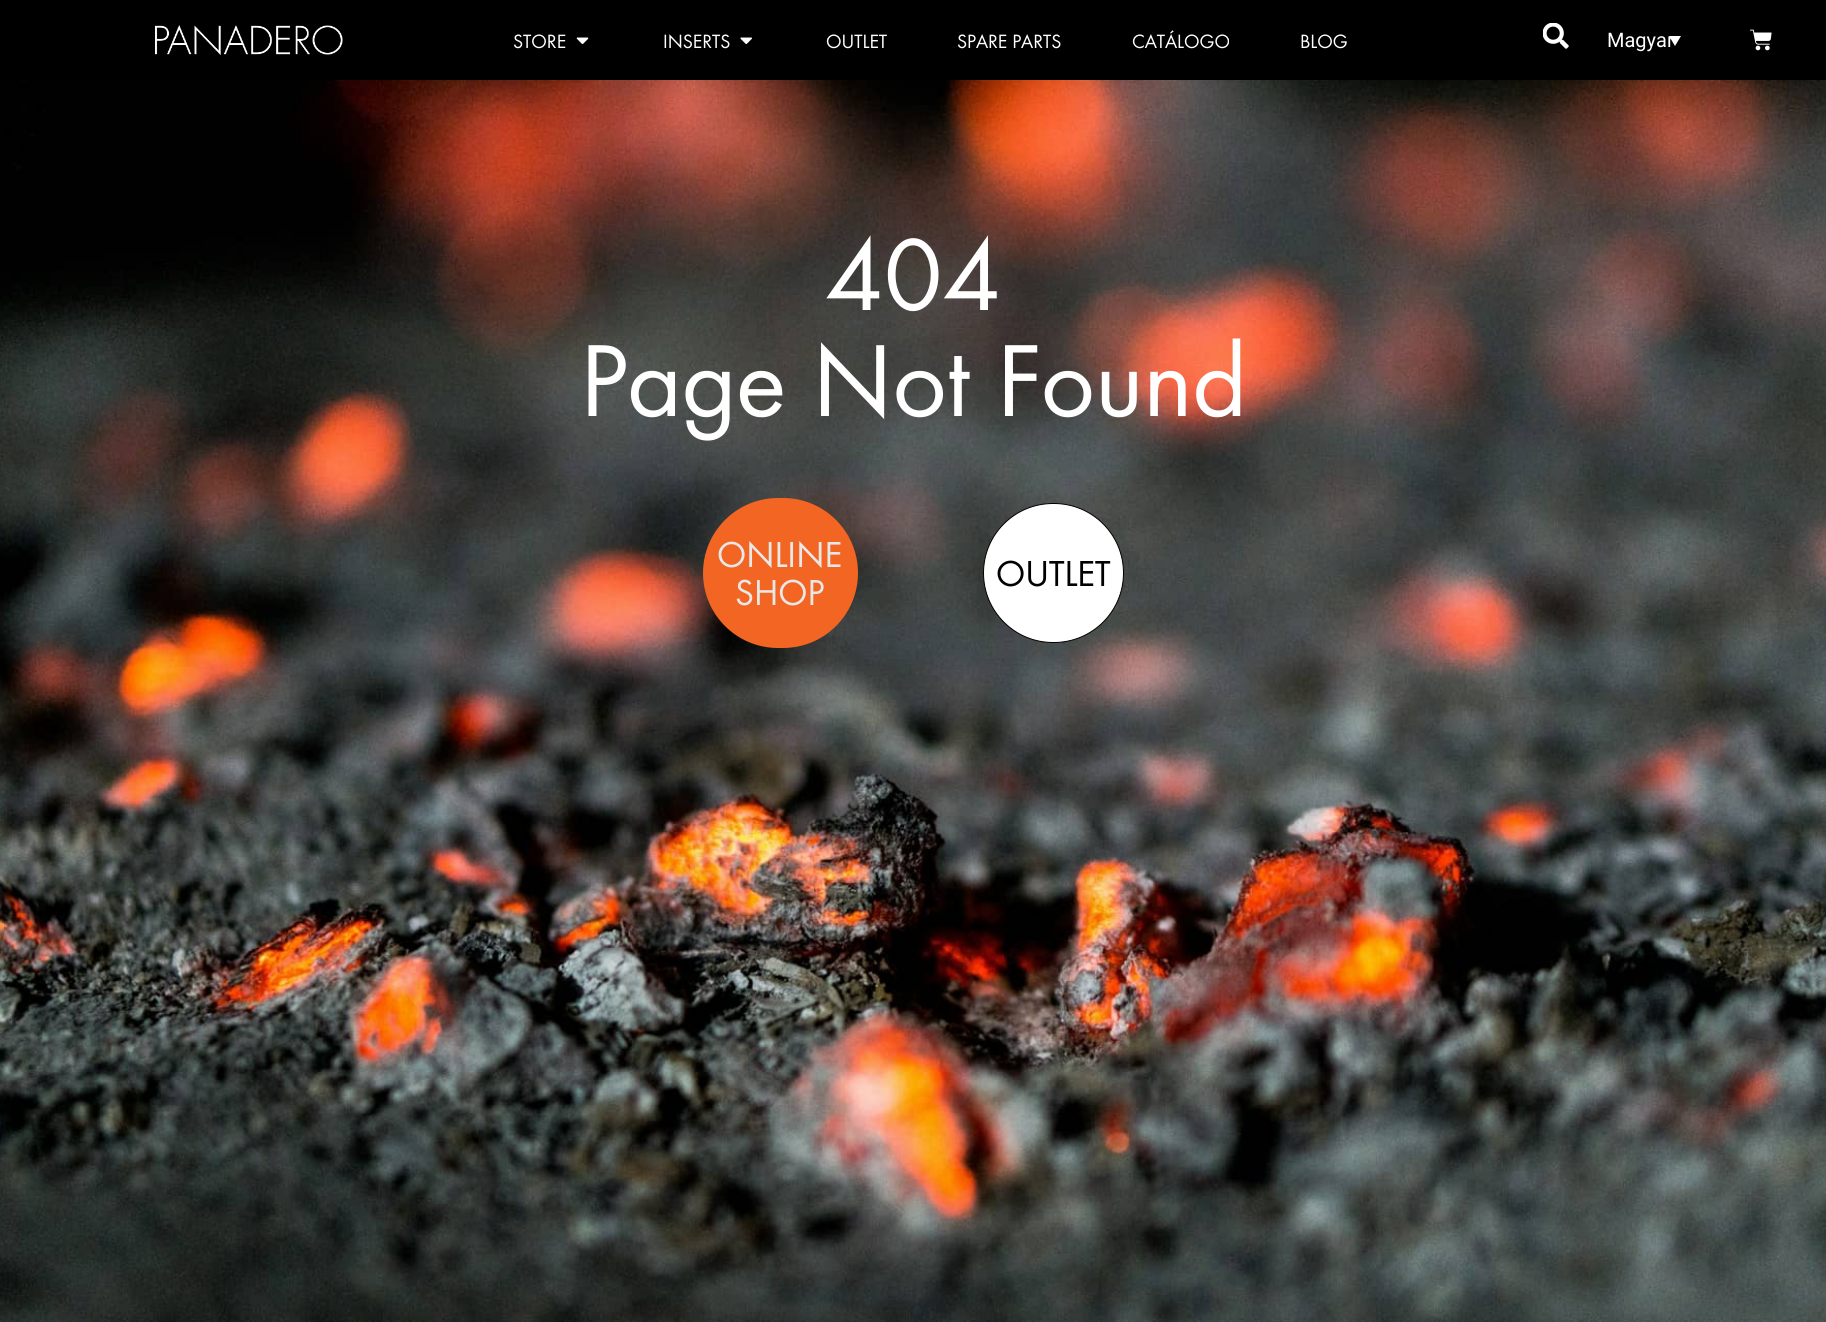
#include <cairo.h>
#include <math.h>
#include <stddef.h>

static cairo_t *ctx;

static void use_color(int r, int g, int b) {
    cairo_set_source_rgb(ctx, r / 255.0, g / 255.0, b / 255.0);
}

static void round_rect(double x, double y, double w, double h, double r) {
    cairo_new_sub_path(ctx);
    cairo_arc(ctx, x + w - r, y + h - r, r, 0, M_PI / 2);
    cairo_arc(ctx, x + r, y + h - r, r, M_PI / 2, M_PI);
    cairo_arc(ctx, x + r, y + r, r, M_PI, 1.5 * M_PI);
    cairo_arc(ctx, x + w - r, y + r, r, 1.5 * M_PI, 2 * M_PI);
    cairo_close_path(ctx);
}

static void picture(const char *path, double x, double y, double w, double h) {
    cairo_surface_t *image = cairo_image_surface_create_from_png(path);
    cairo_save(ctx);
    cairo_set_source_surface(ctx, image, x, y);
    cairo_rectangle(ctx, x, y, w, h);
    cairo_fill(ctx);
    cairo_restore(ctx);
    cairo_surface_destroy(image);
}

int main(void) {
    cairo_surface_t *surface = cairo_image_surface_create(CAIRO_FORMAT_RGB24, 1826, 1322);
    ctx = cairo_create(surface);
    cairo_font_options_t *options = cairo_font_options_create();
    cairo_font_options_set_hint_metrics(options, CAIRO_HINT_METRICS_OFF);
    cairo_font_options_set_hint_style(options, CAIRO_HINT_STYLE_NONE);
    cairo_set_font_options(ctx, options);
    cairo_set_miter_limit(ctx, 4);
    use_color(0, 0, 0);
    cairo_paint(ctx);
    picture("img1.png", 155, 25, 188, 30);
    cairo_select_font_face(ctx, "Futura", CAIRO_FONT_SLANT_NORMAL, CAIRO_FONT_WEIGHT_NORMAL);
    cairo_set_font_size(ctx, 20);
    use_color(255, 255, 255);
    cairo_move_to(ctx, 513, 48);
    cairo_show_text(ctx, "STORE");
    picture("img2.png", 576, 37, 13, 7);
    cairo_move_to(ctx, 663, 48);
    cairo_show_text(ctx, "INSERTS");
    picture("img3.png", 740, 37, 12, 7);
    cairo_move_to(ctx, 826, 48);
    cairo_show_text(ctx, "OUTLET");
    cairo_move_to(ctx, 957, 48);
    cairo_show_text(ctx, "SPARE PARTS");
    cairo_move_to(ctx, 1132, 48);
    cairo_show_text(ctx, "CATÁLOGO");
    cairo_move_to(ctx, 1300, 48);
    cairo_show_text(ctx, "BLOG");
    picture("img4.png", 1543, 23, 26, 26);
    cairo_select_font_face(ctx, "Roboto", CAIRO_FONT_SLANT_NORMAL, CAIRO_FONT_WEIGHT_NORMAL);
    cairo_move_to(ctx, 1607, 47);
    cairo_show_text(ctx, "Magyar");
    cairo_new_path(ctx);
    cairo_move_to(ctx, 1669, 36);
    cairo_line_to(ctx, 1681, 36);
    cairo_line_to(ctx, 1675, 46);
    cairo_close_path(ctx);
    cairo_fill(ctx);
    picture("img5.png", 1750, 29, 22, 22);
    picture("img6.png", 0, 80, 1826, 1242);
    cairo_select_font_face(ctx, "Futura", CAIRO_FONT_SLANT_NORMAL, CAIRO_FONT_WEIGHT_NORMAL);
    cairo_set_font_size(ctx, 106.25);
    cairo_move_to(ctx, 825, 310);
    cairo_show_text(ctx, "404");
    cairo_move_to(ctx, 580, 416);
    cairo_show_text(ctx, "Page Not Found");
    use_color(242, 101, 34);
    round_rect(703, 498, 155, 150, 75);
    cairo_fill(ctx);
    cairo_set_font_size(ctx, 37.5);
    use_color(231, 231, 231);
    cairo_move_to(ctx, 717, 567);
    cairo_show_text(ctx, "ONLINE");
    cairo_move_to(ctx, 735, 605);
    cairo_show_text(ctx, "SHOP");
    use_color(255, 255, 255);
    round_rect(983.5, 503.5, 140, 139, 69.5);
    cairo_fill_preserve(ctx);
    use_color(0, 0, 0);
    cairo_set_line_width(ctx, 1);
    cairo_stroke(ctx);
    cairo_move_to(ctx, 996, 586);
    cairo_show_text(ctx, "OUTLET");
    cairo_surface_write_to_png(surface, "result.png");
    cairo_font_options_destroy(options);
    cairo_destroy(ctx);
    cairo_surface_destroy(surface);
    return 0;
}
